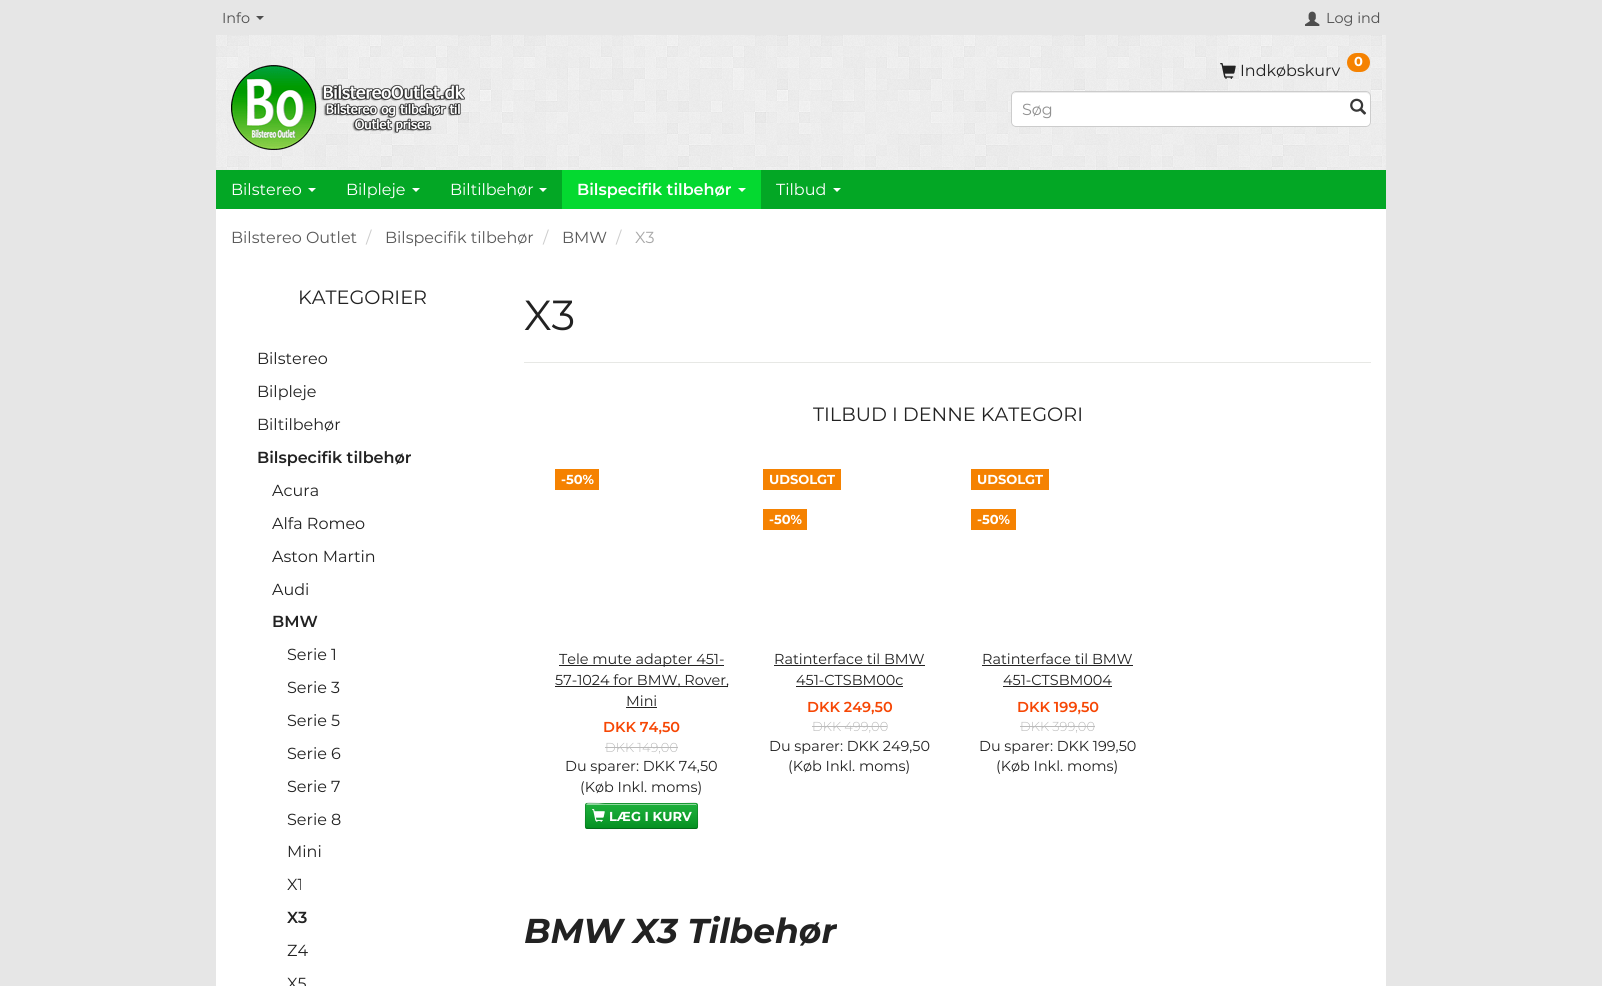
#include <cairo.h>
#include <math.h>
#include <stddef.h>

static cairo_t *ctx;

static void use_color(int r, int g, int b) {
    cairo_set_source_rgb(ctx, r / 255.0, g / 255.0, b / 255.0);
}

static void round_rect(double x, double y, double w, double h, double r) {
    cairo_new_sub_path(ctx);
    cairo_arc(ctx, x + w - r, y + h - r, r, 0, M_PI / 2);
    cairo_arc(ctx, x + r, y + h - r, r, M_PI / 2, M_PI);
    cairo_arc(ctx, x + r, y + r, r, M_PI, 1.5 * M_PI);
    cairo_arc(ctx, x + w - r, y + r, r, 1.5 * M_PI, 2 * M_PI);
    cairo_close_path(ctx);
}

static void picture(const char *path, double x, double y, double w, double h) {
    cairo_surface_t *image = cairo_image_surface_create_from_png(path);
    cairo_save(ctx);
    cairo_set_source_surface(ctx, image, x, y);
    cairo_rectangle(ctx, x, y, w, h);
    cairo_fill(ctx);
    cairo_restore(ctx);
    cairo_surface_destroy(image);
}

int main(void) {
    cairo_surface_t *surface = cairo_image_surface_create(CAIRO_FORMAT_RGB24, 1602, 986);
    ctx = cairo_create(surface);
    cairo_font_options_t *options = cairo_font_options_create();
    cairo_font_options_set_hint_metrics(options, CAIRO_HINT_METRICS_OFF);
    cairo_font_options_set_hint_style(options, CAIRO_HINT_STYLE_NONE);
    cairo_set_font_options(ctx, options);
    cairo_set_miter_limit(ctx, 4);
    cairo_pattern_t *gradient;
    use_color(230, 230, 230);
    cairo_paint(ctx);
    cairo_select_font_face(ctx, "Montserrat", CAIRO_FONT_SLANT_NORMAL, CAIRO_FONT_WEIGHT_NORMAL);
    cairo_set_font_size(ctx, 14.4);
    use_color(78, 78, 78);
    cairo_move_to(ctx, 222, 23);
    cairo_show_text(ctx, "Info");
    cairo_new_path(ctx);
    cairo_move_to(ctx, 256, 16);
    cairo_line_to(ctx, 264, 16);
    cairo_line_to(ctx, 260, 20);
    cairo_close_path(ctx);
    cairo_fill(ctx);
    picture("img1.png", 1305, 11, 15, 15);
    cairo_move_to(ctx, 1326, 23);
    cairo_show_text(ctx, "Log ind");
    picture("img2.png", 216, 35, 1170, 135);
    picture("img3.png", 231, 65, 234, 85);
    use_color(245, 130, 1);
    round_rect(1347, 53, 23, 19, 9.5);
    cairo_fill(ctx);
    cairo_select_font_face(ctx, "Montserrat", CAIRO_FONT_SLANT_NORMAL, CAIRO_FONT_WEIGHT_BOLD);
    cairo_set_font_size(ctx, 13);
    use_color(255, 255, 255);
    cairo_move_to(ctx, 1354, 66);
    cairo_show_text(ctx, "0");
    picture("img4.png", 1220, 63, 16, 16);
    cairo_select_font_face(ctx, "Montserrat", CAIRO_FONT_SLANT_NORMAL, CAIRO_FONT_WEIGHT_NORMAL);
    cairo_set_font_size(ctx, 16);
    use_color(34, 34, 34);
    cairo_move_to(ctx, 1240, 76);
    cairo_show_text(ctx, "Indkøbskurv");
    use_color(255, 255, 255);
    round_rect(1011, 91, 360, 36, 5);
    cairo_fill(ctx);
    use_color(236, 236, 236);
    cairo_new_path(ctx);
    cairo_move_to(ctx, 1016, 93);
    cairo_line_to(ctx, 1366, 93);
    cairo_curve_to(ctx, 1368, 93, 1370, 95, 1370, 97);
    cairo_curve_to(ctx, 1370, 94, 1369, 92, 1366, 92);
    cairo_line_to(ctx, 1015, 92);
    cairo_line_to(ctx, 1013, 94);
    cairo_line_to(ctx, 1012, 97);
    cairo_curve_to(ctx, 1012, 95, 1014, 93, 1016, 93);
    cairo_close_path(ctx);
    cairo_fill(ctx);
    round_rect(1011.5, 91.5, 359, 35, 4.5);
    use_color(204, 204, 204);
    cairo_set_line_width(ctx, 1);
    cairo_stroke(ctx);
    use_color(145, 145, 145);
    cairo_move_to(ctx, 1022, 115);
    cairo_show_text(ctx, "Søg");
    picture("img5.png", 1350, 98, 17, 17);
    use_color(3, 167, 37);
    cairo_rectangle(ctx, 216, 170, 1170, 39);
    cairo_fill(ctx);
    use_color(255, 255, 255);
    cairo_move_to(ctx, 231, 195);
    cairo_show_text(ctx, "Bilstereo");
    cairo_new_path(ctx);
    cairo_move_to(ctx, 308, 188);
    cairo_line_to(ctx, 316, 188);
    cairo_line_to(ctx, 312, 192);
    cairo_close_path(ctx);
    cairo_fill(ctx);
    cairo_move_to(ctx, 346, 195);
    cairo_show_text(ctx, "Bilpleje");
    cairo_new_path(ctx);
    cairo_move_to(ctx, 412, 188);
    cairo_line_to(ctx, 420, 188);
    cairo_line_to(ctx, 416, 192);
    cairo_close_path(ctx);
    cairo_fill(ctx);
    cairo_move_to(ctx, 450, 195);
    cairo_show_text(ctx, "Biltilbehør");
    cairo_new_path(ctx);
    cairo_move_to(ctx, 539, 188);
    cairo_line_to(ctx, 547, 188);
    cairo_line_to(ctx, 543, 192);
    cairo_close_path(ctx);
    cairo_fill(ctx);
    use_color(4, 217, 48);
    cairo_rectangle(ctx, 562, 170, 199, 39);
    cairo_fill(ctx);
    cairo_select_font_face(ctx, "Montserrat SemiBold", CAIRO_FONT_SLANT_NORMAL, CAIRO_FONT_WEIGHT_NORMAL);
    use_color(255, 255, 255);
    cairo_move_to(ctx, 577, 195);
    cairo_show_text(ctx, "Bilspecifik tilbehør");
    cairo_new_path(ctx);
    cairo_move_to(ctx, 738, 188);
    cairo_line_to(ctx, 746, 188);
    cairo_line_to(ctx, 742, 192);
    cairo_close_path(ctx);
    cairo_fill(ctx);
    cairo_select_font_face(ctx, "Montserrat", CAIRO_FONT_SLANT_NORMAL, CAIRO_FONT_WEIGHT_NORMAL);
    cairo_move_to(ctx, 776, 195);
    cairo_show_text(ctx, "Tilbud");
    cairo_new_path(ctx);
    cairo_move_to(ctx, 833, 188);
    cairo_line_to(ctx, 841, 188);
    cairo_line_to(ctx, 837, 192);
    cairo_close_path(ctx);
    cairo_fill(ctx);
    cairo_rectangle(ctx, 216, 209, 1170, 777);
    cairo_fill(ctx);
    use_color(89, 89, 89);
    cairo_move_to(ctx, 231, 243);
    cairo_show_text(ctx, "Bilstereo Outlet");
    use_color(204, 204, 204);
    cairo_move_to(ctx, 366, 243);
    cairo_show_text(ctx, "/");
    use_color(89, 89, 89);
    cairo_move_to(ctx, 385, 243);
    cairo_show_text(ctx, "Bilspecifik tilbehør");
    use_color(204, 204, 204);
    cairo_move_to(ctx, 543, 243);
    cairo_show_text(ctx, "/");
    use_color(89, 89, 89);
    cairo_move_to(ctx, 562, 243);
    cairo_show_text(ctx, "BMW");
    use_color(204, 204, 204);
    cairo_move_to(ctx, 616, 243);
    cairo_show_text(ctx, "/");
    use_color(167, 167, 167);
    cairo_move_to(ctx, 635, 243);
    cairo_show_text(ctx, "X3");
    cairo_set_font_size(ctx, 19.25);
    use_color(34, 34, 34);
    cairo_move_to(ctx, 298, 304);
    cairo_show_text(ctx, "KATEGORIER");
    cairo_set_font_size(ctx, 16);
    cairo_move_to(ctx, 257, 364);
    cairo_show_text(ctx, "Bilstereo");
    cairo_move_to(ctx, 257, 397);
    cairo_show_text(ctx, "Bilpleje");
    cairo_move_to(ctx, 257, 430);
    cairo_show_text(ctx, "Biltilbehør");
    cairo_select_font_face(ctx, "Montserrat SemiBold", CAIRO_FONT_SLANT_NORMAL, CAIRO_FONT_WEIGHT_NORMAL);
    cairo_move_to(ctx, 257, 463);
    cairo_show_text(ctx, "Bilspecifik tilbehør");
    cairo_select_font_face(ctx, "Montserrat", CAIRO_FONT_SLANT_NORMAL, CAIRO_FONT_WEIGHT_NORMAL);
    cairo_move_to(ctx, 272, 496);
    cairo_show_text(ctx, "Acura");
    cairo_move_to(ctx, 272, 529);
    cairo_show_text(ctx, "Alfa Romeo");
    cairo_move_to(ctx, 272, 562);
    cairo_show_text(ctx, "Aston Martin");
    cairo_move_to(ctx, 272, 595);
    cairo_show_text(ctx, "Audi");
    cairo_select_font_face(ctx, "Montserrat SemiBold", CAIRO_FONT_SLANT_NORMAL, CAIRO_FONT_WEIGHT_NORMAL);
    cairo_move_to(ctx, 272, 627);
    cairo_show_text(ctx, "BMW");
    cairo_select_font_face(ctx, "Montserrat", CAIRO_FONT_SLANT_NORMAL, CAIRO_FONT_WEIGHT_NORMAL);
    cairo_move_to(ctx, 287, 660);
    cairo_show_text(ctx, "Serie 1");
    cairo_move_to(ctx, 287, 693);
    cairo_show_text(ctx, "Serie 3");
    cairo_move_to(ctx, 287, 726);
    cairo_show_text(ctx, "Serie 5");
    cairo_move_to(ctx, 287, 759);
    cairo_show_text(ctx, "Serie 6");
    cairo_move_to(ctx, 287, 792);
    cairo_show_text(ctx, "Serie 7");
    cairo_move_to(ctx, 287, 825);
    cairo_show_text(ctx, "Serie 8");
    cairo_move_to(ctx, 287, 857);
    cairo_show_text(ctx, "Mini");
    cairo_move_to(ctx, 287, 890);
    cairo_show_text(ctx, "X1");
    cairo_select_font_face(ctx, "Montserrat SemiBold", CAIRO_FONT_SLANT_NORMAL, CAIRO_FONT_WEIGHT_NORMAL);
    cairo_move_to(ctx, 287, 923);
    cairo_show_text(ctx, "X3");
    cairo_select_font_face(ctx, "Montserrat", CAIRO_FONT_SLANT_NORMAL, CAIRO_FONT_WEIGHT_NORMAL);
    cairo_move_to(ctx, 287, 956);
    cairo_show_text(ctx, "Z4");
    cairo_move_to(ctx, 287, 989);
    cairo_show_text(ctx, "X5");
    use_color(231, 232, 229);
    cairo_rectangle(ctx, 524, 362, 847, 1);
    cairo_fill(ctx);
    cairo_set_font_size(ctx, 42);
    use_color(34, 34, 34);
    cairo_move_to(ctx, 524, 330);
    cairo_show_text(ctx, "X3");
    cairo_set_font_size(ctx, 19.25);
    cairo_move_to(ctx, 813, 421);
    cairo_show_text(ctx, "TILBUD I DENNE KATEGORI");
    use_color(245, 130, 1);
    cairo_rectangle(ctx, 555, 469, 44, 21);
    cairo_fill(ctx);
    cairo_select_font_face(ctx, "Montserrat", CAIRO_FONT_SLANT_NORMAL, CAIRO_FONT_WEIGHT_BOLD);
    cairo_set_font_size(ctx, 13);
    use_color(255, 255, 255);
    cairo_move_to(ctx, 561, 484);
    cairo_show_text(ctx, "-50%");
    use_color(34, 34, 34);
    cairo_rectangle(ctx, 559, 665, 165, 1);
    cairo_fill(ctx);
    cairo_select_font_face(ctx, "Montserrat", CAIRO_FONT_SLANT_NORMAL, CAIRO_FONT_WEIGHT_NORMAL);
    cairo_set_font_size(ctx, 14.4);
    cairo_move_to(ctx, 559, 664);
    cairo_show_text(ctx, "Tele mute adapter 451-");
    cairo_rectangle(ctx, 555, 686, 173, 1);
    cairo_fill(ctx);
    cairo_move_to(ctx, 555, 685);
    cairo_show_text(ctx, "57-1024 for BMW, Rover,");
    cairo_move_to(ctx, 626, 706);
    cairo_show_text(ctx, "Mini");
    cairo_rectangle(ctx, 626, 707, 31, 1);
    cairo_fill(ctx);
    cairo_select_font_face(ctx, "Montserrat SemiBold", CAIRO_FONT_SLANT_NORMAL, CAIRO_FONT_WEIGHT_NORMAL);
    use_color(246, 71, 5);
    cairo_move_to(ctx, 603, 732);
    cairo_show_text(ctx, "DKK 74,50");
    cairo_select_font_face(ctx, "Montserrat Light", CAIRO_FONT_SLANT_NORMAL, CAIRO_FONT_WEIGHT_NORMAL);
    cairo_set_font_size(ctx, 13);
    use_color(187, 187, 187);
    cairo_move_to(ctx, 605, 752);
    cairo_show_text(ctx, "DKK 149,00");
    cairo_rectangle(ctx, 605, 747, 73, 1);
    cairo_fill(ctx);
    cairo_select_font_face(ctx, "Montserrat", CAIRO_FONT_SLANT_NORMAL, CAIRO_FONT_WEIGHT_NORMAL);
    cairo_set_font_size(ctx, 14.4);
    use_color(34, 34, 34);
    cairo_move_to(ctx, 565, 771);
    cairo_show_text(ctx, "Du sparer: DKK 74,50");
    cairo_move_to(ctx, 580, 792);
    cairo_show_text(ctx, "(Køb Inkl. moms)");
    use_color(3, 167, 37);
    round_rect(585, 803, 113, 26, 2);
    cairo_fill(ctx);
    gradient = cairo_pattern_create_linear(642, 803, 642, 829);
    cairo_pattern_add_color_stop_rgba(gradient, 0, 1, 1, 1, 0.1);
    cairo_pattern_add_color_stop_rgba(gradient, 1, 0, 0, 0, 0.15);
    cairo_set_source(ctx, gradient);
    cairo_pattern_destroy(gradient);
    round_rect(585, 803, 113, 26, 2);
    cairo_fill(ctx);
    cairo_set_source_rgba(ctx, 1, 1, 1, 0.5);
    cairo_new_path(ctx);
    cairo_move_to(ctx, 587, 805);
    cairo_line_to(ctx, 697, 805);
    cairo_line_to(ctx, 697, 806);
    cairo_line_to(ctx, 696, 804);
    cairo_line_to(ctx, 605, 804);
    cairo_curve_to(ctx, 601, 804, 586, 799, 586, 806);
    cairo_curve_to(ctx, 586, 805, 586, 805, 587, 805);
    cairo_close_path(ctx);
    cairo_fill(ctx);
    cairo_new_path(ctx);
    cairo_move_to(ctx, 697, 828);
    cairo_line_to(ctx, 696, 828.5);
    cairo_line_to(ctx, 623.5, 828.5);
    cairo_curve_to(ctx, 621, 828.5, 587, 829, 586, 828);
    cairo_set_source_rgba(ctx, 0, 0, 0, 0.25);
    cairo_stroke(ctx);
    cairo_new_path(ctx);
    cairo_move_to(ctx, 586, 828);
    cairo_curve_to(ctx, 584.5, 826.5, 585.5, 818, 585.5, 816);
    cairo_curve_to(ctx, 585.5, 798.5, 583, 803.5, 605, 803.5);
    cairo_line_to(ctx, 678, 803.5);
    cairo_curve_to(ctx, 700, 803.5, 697.5, 798.5, 697.5, 816);
    cairo_curve_to(ctx, 697.5, 818, 698.5, 826.5, 697, 828);
    cairo_set_source_rgba(ctx, 0, 0, 0, 0.15);
    cairo_stroke(ctx);
    picture("img6.png", 592, 809, 13, 13);
    cairo_select_font_face(ctx, "Montserrat", CAIRO_FONT_SLANT_NORMAL, CAIRO_FONT_WEIGHT_BOLD);
    cairo_set_font_size(ctx, 13);
    use_color(255, 255, 255);
    cairo_move_to(ctx, 609, 821);
    cairo_show_text(ctx, "LÆG I KURV");
    use_color(245, 130, 1);
    cairo_rectangle(ctx, 763, 469, 78, 21);
    cairo_fill(ctx);
    use_color(255, 255, 255);
    cairo_move_to(ctx, 769, 484);
    cairo_show_text(ctx, "UDSOLGT");
    use_color(245, 130, 1);
    cairo_rectangle(ctx, 763, 509, 44, 21);
    cairo_fill(ctx);
    use_color(255, 255, 255);
    cairo_move_to(ctx, 769, 524);
    cairo_show_text(ctx, "-50%");
    cairo_select_font_face(ctx, "Montserrat", CAIRO_FONT_SLANT_NORMAL, CAIRO_FONT_WEIGHT_NORMAL);
    cairo_set_font_size(ctx, 14.4);
    use_color(34, 34, 34);
    cairo_move_to(ctx, 774, 664);
    cairo_show_text(ctx, "Ratinterface til BMW");
    cairo_rectangle(ctx, 774, 665, 151, 1);
    cairo_fill(ctx);
    cairo_move_to(ctx, 796, 685);
    cairo_show_text(ctx, "451-CTSBM00c");
    cairo_rectangle(ctx, 796, 686, 107, 1);
    cairo_fill(ctx);
    cairo_select_font_face(ctx, "Montserrat SemiBold", CAIRO_FONT_SLANT_NORMAL, CAIRO_FONT_WEIGHT_NORMAL);
    use_color(246, 71, 5);
    cairo_move_to(ctx, 807, 712);
    cairo_show_text(ctx, "DKK 249,50");
    cairo_select_font_face(ctx, "Montserrat Light", CAIRO_FONT_SLANT_NORMAL, CAIRO_FONT_WEIGHT_NORMAL);
    cairo_set_font_size(ctx, 13);
    use_color(187, 187, 187);
    cairo_move_to(ctx, 812, 731);
    cairo_show_text(ctx, "DKK 499,00");
    cairo_rectangle(ctx, 812, 726, 75, 1);
    cairo_fill(ctx);
    cairo_select_font_face(ctx, "Montserrat", CAIRO_FONT_SLANT_NORMAL, CAIRO_FONT_WEIGHT_NORMAL);
    cairo_set_font_size(ctx, 14.4);
    use_color(34, 34, 34);
    cairo_move_to(ctx, 769, 751);
    cairo_show_text(ctx, "Du sparer: DKK 249,50");
    cairo_move_to(ctx, 788, 771);
    cairo_show_text(ctx, "(Køb Inkl. moms)");
    use_color(245, 130, 1);
    cairo_rectangle(ctx, 971, 469, 78, 21);
    cairo_fill(ctx);
    cairo_select_font_face(ctx, "Montserrat", CAIRO_FONT_SLANT_NORMAL, CAIRO_FONT_WEIGHT_BOLD);
    cairo_set_font_size(ctx, 13);
    use_color(255, 255, 255);
    cairo_move_to(ctx, 977, 484);
    cairo_show_text(ctx, "UDSOLGT");
    use_color(245, 130, 1);
    cairo_rectangle(ctx, 971, 509, 45, 21);
    cairo_fill(ctx);
    use_color(255, 255, 255);
    cairo_move_to(ctx, 977, 524);
    cairo_show_text(ctx, "-50%");
    cairo_select_font_face(ctx, "Montserrat", CAIRO_FONT_SLANT_NORMAL, CAIRO_FONT_WEIGHT_NORMAL);
    cairo_set_font_size(ctx, 14.4);
    use_color(34, 34, 34);
    cairo_move_to(ctx, 982, 664);
    cairo_show_text(ctx, "Ratinterface til BMW");
    cairo_rectangle(ctx, 982, 665, 151, 1);
    cairo_fill(ctx);
    cairo_move_to(ctx, 1003, 685);
    cairo_show_text(ctx, "451-CTSBM004");
    cairo_rectangle(ctx, 1003, 686, 109, 1);
    cairo_fill(ctx);
    cairo_select_font_face(ctx, "Montserrat SemiBold", CAIRO_FONT_SLANT_NORMAL, CAIRO_FONT_WEIGHT_NORMAL);
    use_color(246, 71, 5);
    cairo_move_to(ctx, 1017, 712);
    cairo_show_text(ctx, "DKK 199,50");
    cairo_select_font_face(ctx, "Montserrat Light", CAIRO_FONT_SLANT_NORMAL, CAIRO_FONT_WEIGHT_NORMAL);
    cairo_set_font_size(ctx, 13);
    use_color(187, 187, 187);
    cairo_move_to(ctx, 1020, 731);
    cairo_show_text(ctx, "DKK 399,00");
    cairo_rectangle(ctx, 1020, 726, 75, 1);
    cairo_fill(ctx);
    cairo_select_font_face(ctx, "Montserrat", CAIRO_FONT_SLANT_NORMAL, CAIRO_FONT_WEIGHT_NORMAL);
    cairo_set_font_size(ctx, 14.4);
    use_color(34, 34, 34);
    cairo_move_to(ctx, 979, 751);
    cairo_show_text(ctx, "Du sparer: DKK 199,50");
    cairo_move_to(ctx, 996, 771);
    cairo_show_text(ctx, "(Køb Inkl. moms)");
    cairo_select_font_face(ctx, "Montserrat", CAIRO_FONT_SLANT_ITALIC, CAIRO_FONT_WEIGHT_BOLD);
    cairo_set_font_size(ctx, 34.5);
    cairo_move_to(ctx, 524, 943);
    cairo_show_text(ctx, "BMW X3 Tilbehør");
    cairo_surface_write_to_png(surface, "result.png");
    cairo_font_options_destroy(options);
    cairo_destroy(ctx);
    cairo_surface_destroy(surface);
    return 0;
}
